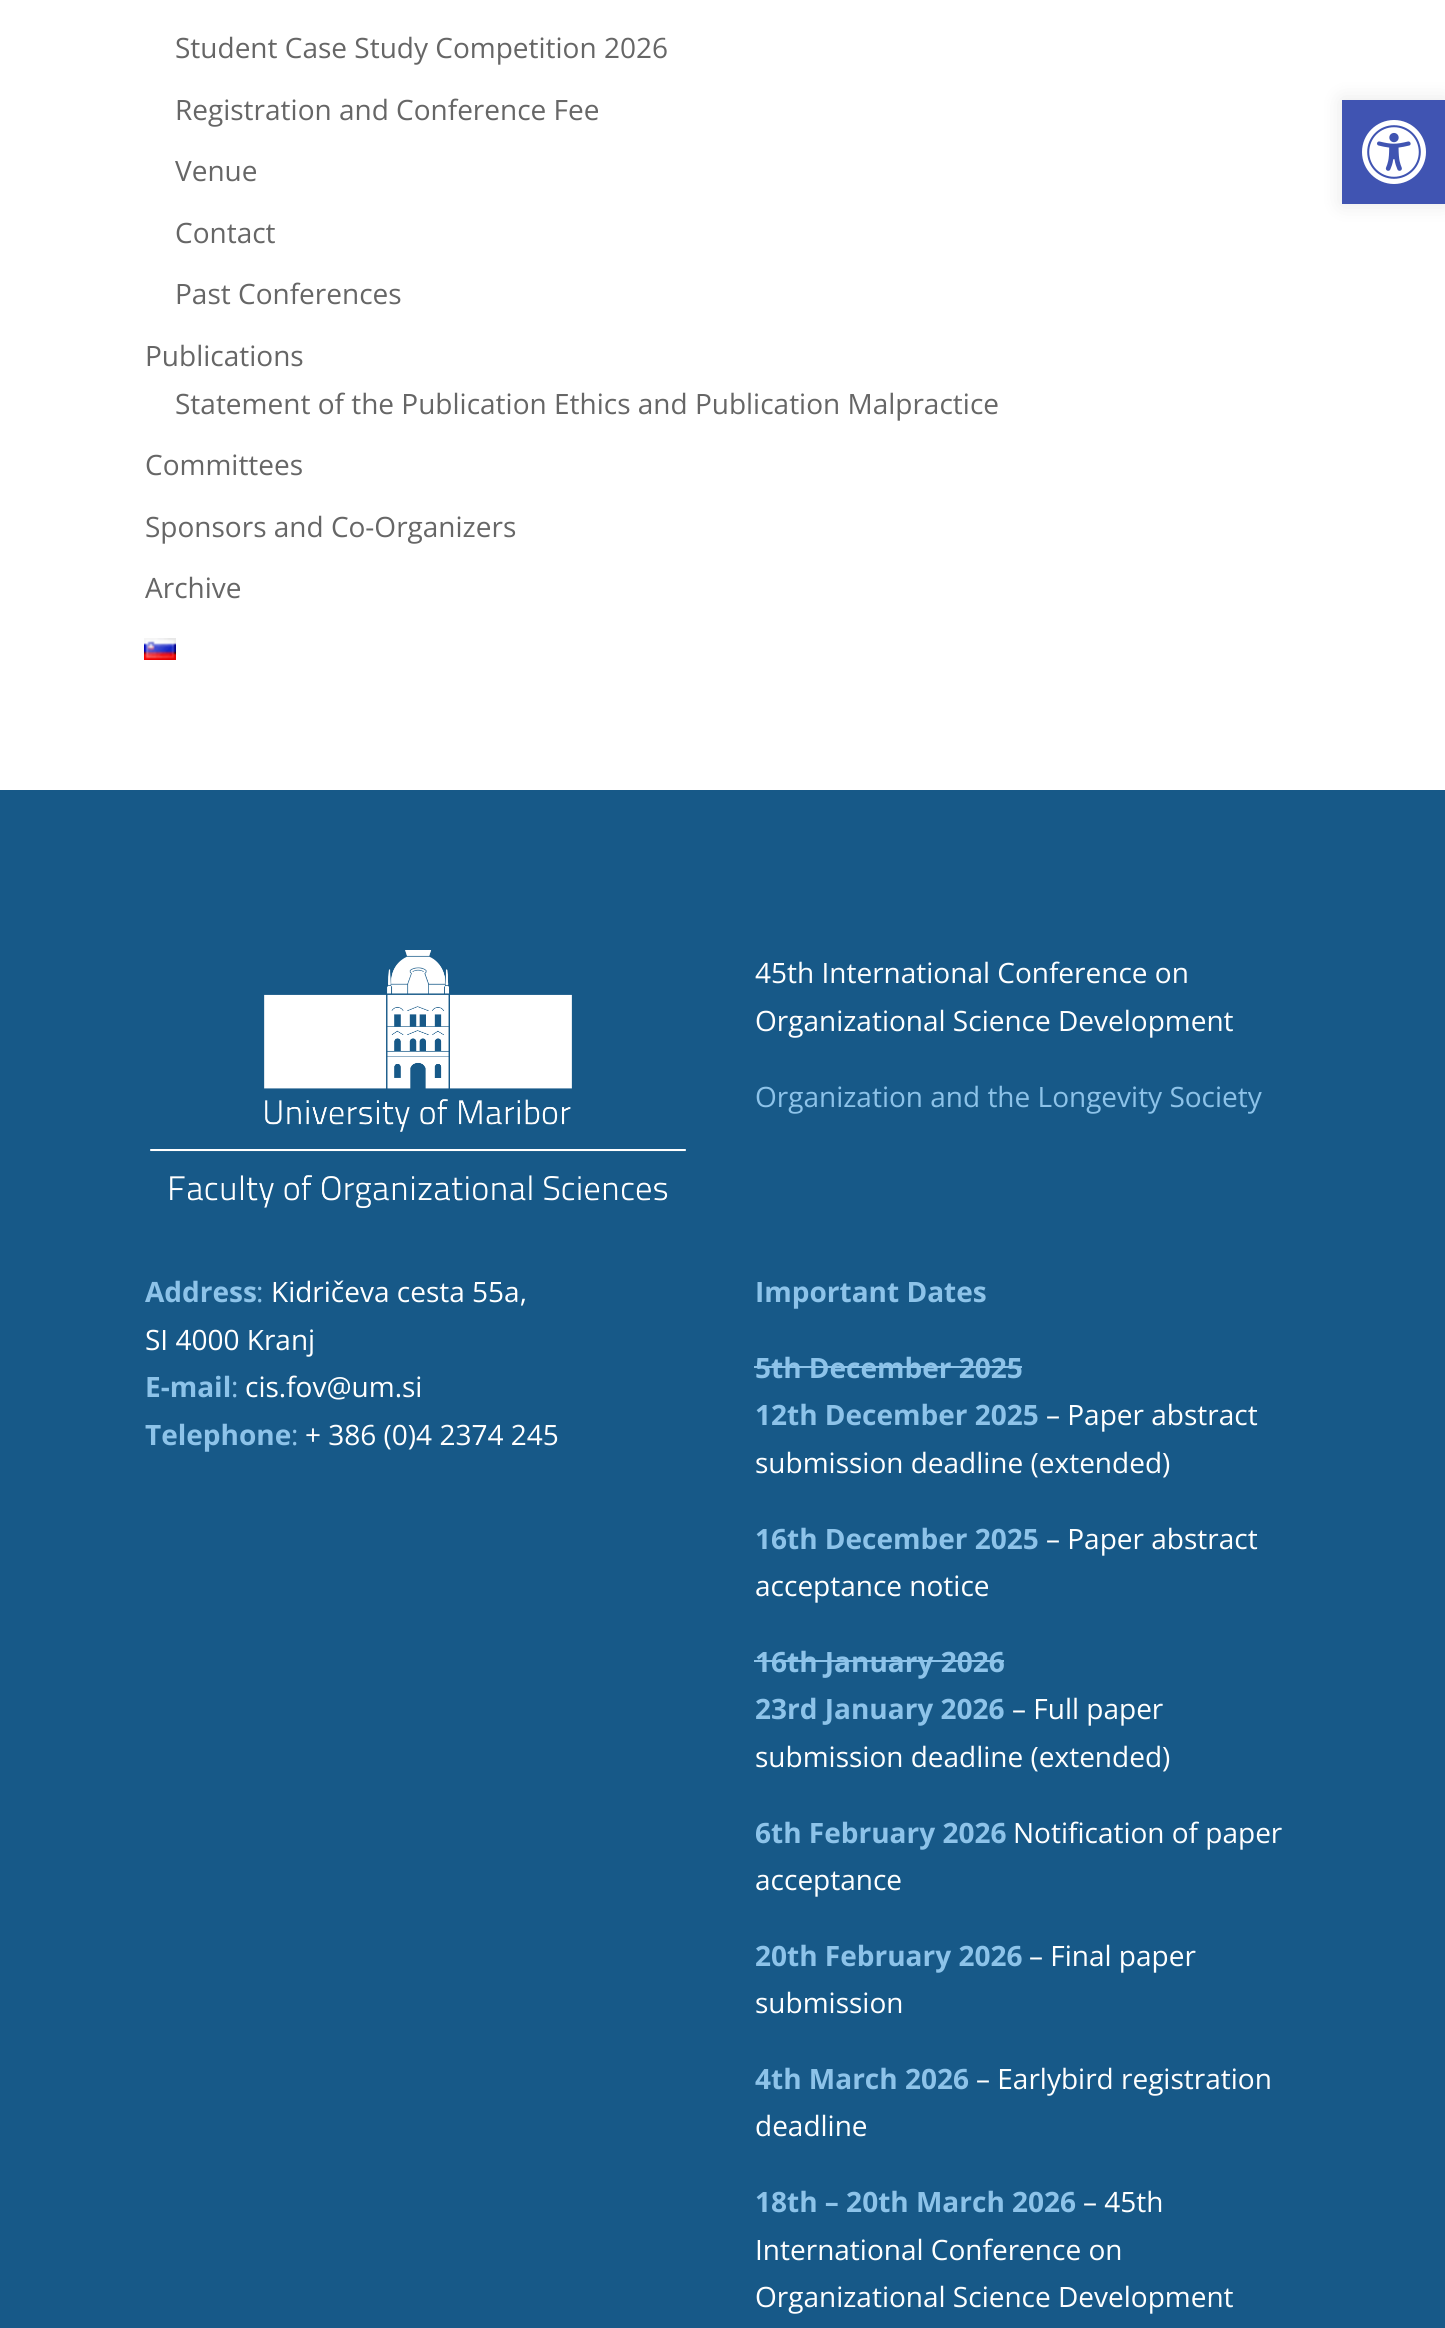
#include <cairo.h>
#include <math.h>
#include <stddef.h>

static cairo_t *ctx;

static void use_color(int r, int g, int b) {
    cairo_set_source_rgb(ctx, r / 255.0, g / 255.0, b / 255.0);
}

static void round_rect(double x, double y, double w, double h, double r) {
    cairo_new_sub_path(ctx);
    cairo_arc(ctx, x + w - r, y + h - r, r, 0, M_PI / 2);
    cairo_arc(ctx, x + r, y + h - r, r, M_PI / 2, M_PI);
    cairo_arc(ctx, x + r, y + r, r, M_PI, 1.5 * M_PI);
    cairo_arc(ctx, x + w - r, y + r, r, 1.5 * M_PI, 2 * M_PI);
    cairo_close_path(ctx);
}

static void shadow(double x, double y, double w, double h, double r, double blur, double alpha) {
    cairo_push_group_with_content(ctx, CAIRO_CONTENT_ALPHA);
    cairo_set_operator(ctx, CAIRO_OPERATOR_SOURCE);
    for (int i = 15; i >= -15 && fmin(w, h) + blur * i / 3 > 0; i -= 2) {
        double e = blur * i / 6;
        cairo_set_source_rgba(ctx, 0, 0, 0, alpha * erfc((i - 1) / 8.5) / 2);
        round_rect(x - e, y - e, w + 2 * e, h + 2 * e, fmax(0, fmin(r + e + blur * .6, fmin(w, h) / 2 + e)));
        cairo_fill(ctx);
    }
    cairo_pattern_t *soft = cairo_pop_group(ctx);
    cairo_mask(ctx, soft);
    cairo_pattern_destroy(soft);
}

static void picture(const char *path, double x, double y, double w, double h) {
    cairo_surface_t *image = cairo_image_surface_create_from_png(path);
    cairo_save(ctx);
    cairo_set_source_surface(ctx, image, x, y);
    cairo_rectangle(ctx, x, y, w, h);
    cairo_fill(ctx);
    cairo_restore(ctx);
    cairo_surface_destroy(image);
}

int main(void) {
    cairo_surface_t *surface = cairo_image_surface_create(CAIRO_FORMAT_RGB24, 1445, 2328);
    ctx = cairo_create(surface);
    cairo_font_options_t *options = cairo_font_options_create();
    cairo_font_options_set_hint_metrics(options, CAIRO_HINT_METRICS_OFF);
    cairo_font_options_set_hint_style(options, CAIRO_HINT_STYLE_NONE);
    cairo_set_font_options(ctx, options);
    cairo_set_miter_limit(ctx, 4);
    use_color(255, 255, 255);
    cairo_paint(ctx);
    cairo_select_font_face(ctx, "Open Sans", CAIRO_FONT_SLANT_NORMAL, CAIRO_FONT_WEIGHT_NORMAL);
    cairo_set_font_size(ctx, 28);
    use_color(102, 102, 102);
    cairo_move_to(ctx, 175, 58);
    cairo_show_text(ctx, "Student Case Study Competition 2026");
    cairo_move_to(ctx, 175, 120);
    cairo_show_text(ctx, "Registration and Conference Fee");
    cairo_move_to(ctx, 175, 181);
    cairo_show_text(ctx, "Venue");
    cairo_move_to(ctx, 175, 243);
    cairo_show_text(ctx, "Contact");
    cairo_move_to(ctx, 175, 304);
    cairo_show_text(ctx, "Past Conferences");
    cairo_move_to(ctx, 145, 366);
    cairo_show_text(ctx, "Publications");
    cairo_move_to(ctx, 175, 414);
    cairo_show_text(ctx, "Statement of the Publication Ethics and Publication Malpractice");
    cairo_move_to(ctx, 145, 475);
    cairo_show_text(ctx, "Committees");
    cairo_move_to(ctx, 145, 537);
    cairo_show_text(ctx, "Sponsors and Co-Organizers");
    cairo_move_to(ctx, 145, 598);
    cairo_show_text(ctx, "Archive");
    picture("img1.png", 144, 638, 32, 22);
    use_color(23, 89, 136);
    cairo_rectangle(ctx, 0, 790, 1445, 1538);
    cairo_fill(ctx);
    picture("img2.png", 150, 950, 536, 258);
    use_color(255, 255, 255);
    cairo_move_to(ctx, 755, 983);
    cairo_show_text(ctx, "45th International Conference on");
    cairo_move_to(ctx, 755, 1031);
    cairo_show_text(ctx, "Organizational Science Development");
    use_color(141, 195, 233);
    cairo_move_to(ctx, 755, 1107);
    cairo_show_text(ctx, "Organization and the Longevity Society");
    cairo_select_font_face(ctx, "Open Sans", CAIRO_FONT_SLANT_NORMAL, CAIRO_FONT_WEIGHT_BOLD);
    cairo_move_to(ctx, 145, 1302);
    cairo_show_text(ctx, "Address");
    cairo_select_font_face(ctx, "Open Sans", CAIRO_FONT_SLANT_NORMAL, CAIRO_FONT_WEIGHT_NORMAL);
    cairo_move_to(ctx, 256, 1302);
    cairo_show_text(ctx, ":");
    use_color(255, 255, 255);
    cairo_move_to(ctx, 271, 1302);
    cairo_show_text(ctx, "Kidričeva cesta 55a,");
    cairo_move_to(ctx, 145, 1350);
    cairo_show_text(ctx, "SI 4000 Kranj");
    cairo_select_font_face(ctx, "Open Sans", CAIRO_FONT_SLANT_NORMAL, CAIRO_FONT_WEIGHT_BOLD);
    use_color(141, 195, 233);
    cairo_move_to(ctx, 145, 1397);
    cairo_show_text(ctx, "E-mail");
    cairo_select_font_face(ctx, "Open Sans", CAIRO_FONT_SLANT_NORMAL, CAIRO_FONT_WEIGHT_NORMAL);
    cairo_move_to(ctx, 231, 1397);
    cairo_show_text(ctx, ":");
    use_color(255, 255, 255);
    cairo_move_to(ctx, 245, 1397);
    cairo_show_text(ctx, "cis.fov@um.si");
    cairo_select_font_face(ctx, "Open Sans", CAIRO_FONT_SLANT_NORMAL, CAIRO_FONT_WEIGHT_BOLD);
    use_color(141, 195, 233);
    cairo_move_to(ctx, 145, 1445);
    cairo_show_text(ctx, "Telephone");
    cairo_select_font_face(ctx, "Open Sans", CAIRO_FONT_SLANT_NORMAL, CAIRO_FONT_WEIGHT_NORMAL);
    cairo_move_to(ctx, 291, 1445);
    cairo_show_text(ctx, ":");
    use_color(255, 255, 255);
    cairo_move_to(ctx, 305, 1445);
    cairo_show_text(ctx, "+ 386 (0)4 2374 245");
    cairo_select_font_face(ctx, "Open Sans", CAIRO_FONT_SLANT_NORMAL, CAIRO_FONT_WEIGHT_BOLD);
    use_color(141, 195, 233);
    cairo_move_to(ctx, 755, 1302);
    cairo_show_text(ctx, "Important Dates");
    cairo_move_to(ctx, 755, 1378);
    cairo_show_text(ctx, "5th December 2025");
    cairo_rectangle(ctx, 754, 1366, 268, 2);
    cairo_fill(ctx);
    cairo_move_to(ctx, 755, 1425);
    cairo_show_text(ctx, "12th December 2025");
    cairo_select_font_face(ctx, "Open Sans", CAIRO_FONT_SLANT_NORMAL, CAIRO_FONT_WEIGHT_NORMAL);
    use_color(255, 255, 255);
    cairo_move_to(ctx, 1046, 1425);
    cairo_show_text(ctx, "– Paper abstract");
    cairo_move_to(ctx, 755, 1473);
    cairo_show_text(ctx, "submission deadline (extended)");
    cairo_select_font_face(ctx, "Open Sans", CAIRO_FONT_SLANT_NORMAL, CAIRO_FONT_WEIGHT_BOLD);
    use_color(141, 195, 233);
    cairo_move_to(ctx, 755, 1549);
    cairo_show_text(ctx, "16th December 2025");
    cairo_select_font_face(ctx, "Open Sans", CAIRO_FONT_SLANT_NORMAL, CAIRO_FONT_WEIGHT_NORMAL);
    use_color(255, 255, 255);
    cairo_move_to(ctx, 1046, 1549);
    cairo_show_text(ctx, "– Paper abstract");
    cairo_move_to(ctx, 755, 1596);
    cairo_show_text(ctx, "acceptance notice");
    cairo_select_font_face(ctx, "Open Sans", CAIRO_FONT_SLANT_NORMAL, CAIRO_FONT_WEIGHT_BOLD);
    use_color(141, 195, 233);
    cairo_move_to(ctx, 755, 1672);
    cairo_show_text(ctx, "16th January 2026");
    cairo_rectangle(ctx, 754, 1660, 250, 2);
    cairo_fill(ctx);
    cairo_move_to(ctx, 755, 1719);
    cairo_show_text(ctx, "23rd January 2026");
    cairo_select_font_face(ctx, "Open Sans", CAIRO_FONT_SLANT_NORMAL, CAIRO_FONT_WEIGHT_NORMAL);
    use_color(255, 255, 255);
    cairo_move_to(ctx, 1012, 1719);
    cairo_show_text(ctx, "– Full paper");
    cairo_move_to(ctx, 755, 1767);
    cairo_show_text(ctx, "submission deadline (extended)");
    cairo_select_font_face(ctx, "Open Sans", CAIRO_FONT_SLANT_NORMAL, CAIRO_FONT_WEIGHT_BOLD);
    use_color(141, 195, 233);
    cairo_move_to(ctx, 755, 1843);
    cairo_show_text(ctx, "6th February 2026");
    cairo_select_font_face(ctx, "Open Sans", CAIRO_FONT_SLANT_NORMAL, CAIRO_FONT_WEIGHT_NORMAL);
    use_color(255, 255, 255);
    cairo_move_to(ctx, 1013, 1843);
    cairo_show_text(ctx, "Notification of paper");
    cairo_move_to(ctx, 755, 1890);
    cairo_show_text(ctx, "acceptance");
    cairo_select_font_face(ctx, "Open Sans", CAIRO_FONT_SLANT_NORMAL, CAIRO_FONT_WEIGHT_BOLD);
    use_color(141, 195, 233);
    cairo_move_to(ctx, 755, 1966);
    cairo_show_text(ctx, "20th February 2026");
    cairo_select_font_face(ctx, "Open Sans", CAIRO_FONT_SLANT_NORMAL, CAIRO_FONT_WEIGHT_NORMAL);
    use_color(255, 255, 255);
    cairo_move_to(ctx, 1029, 1966);
    cairo_show_text(ctx, "– Final paper");
    cairo_move_to(ctx, 755, 2013);
    cairo_show_text(ctx, "submission");
    cairo_select_font_face(ctx, "Open Sans", CAIRO_FONT_SLANT_NORMAL, CAIRO_FONT_WEIGHT_BOLD);
    use_color(141, 195, 233);
    cairo_move_to(ctx, 755, 2089);
    cairo_show_text(ctx, "4th March 2026");
    cairo_select_font_face(ctx, "Open Sans", CAIRO_FONT_SLANT_NORMAL, CAIRO_FONT_WEIGHT_NORMAL);
    use_color(255, 255, 255);
    cairo_move_to(ctx, 976, 2089);
    cairo_show_text(ctx, "– Earlybird registration");
    cairo_move_to(ctx, 755, 2136);
    cairo_show_text(ctx, "deadline");
    cairo_select_font_face(ctx, "Open Sans", CAIRO_FONT_SLANT_NORMAL, CAIRO_FONT_WEIGHT_BOLD);
    use_color(141, 195, 233);
    cairo_move_to(ctx, 755, 2212);
    cairo_show_text(ctx, "18th – 20th March 2026");
    cairo_select_font_face(ctx, "Open Sans", CAIRO_FONT_SLANT_NORMAL, CAIRO_FONT_WEIGHT_NORMAL);
    use_color(255, 255, 255);
    cairo_move_to(ctx, 1083, 2212);
    cairo_show_text(ctx, "– 45th");
    cairo_move_to(ctx, 755, 2260);
    cairo_show_text(ctx, "International Conference on");
    cairo_move_to(ctx, 755, 2307);
    cairo_show_text(ctx, "Organizational Science Development");
    use_color(0, 0, 0);
    shadow(1342, 100, 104, 104, 0, 10, 0.1);
    use_color(64, 84, 178);
    cairo_rectangle(ctx, 1342, 100, 103, 104);
    cairo_fill(ctx);
    picture("img3.png", 1362, 120, 64, 64);
    cairo_surface_write_to_png(surface, "result.png");
    cairo_font_options_destroy(options);
    cairo_destroy(ctx);
    cairo_surface_destroy(surface);
    return 0;
}
